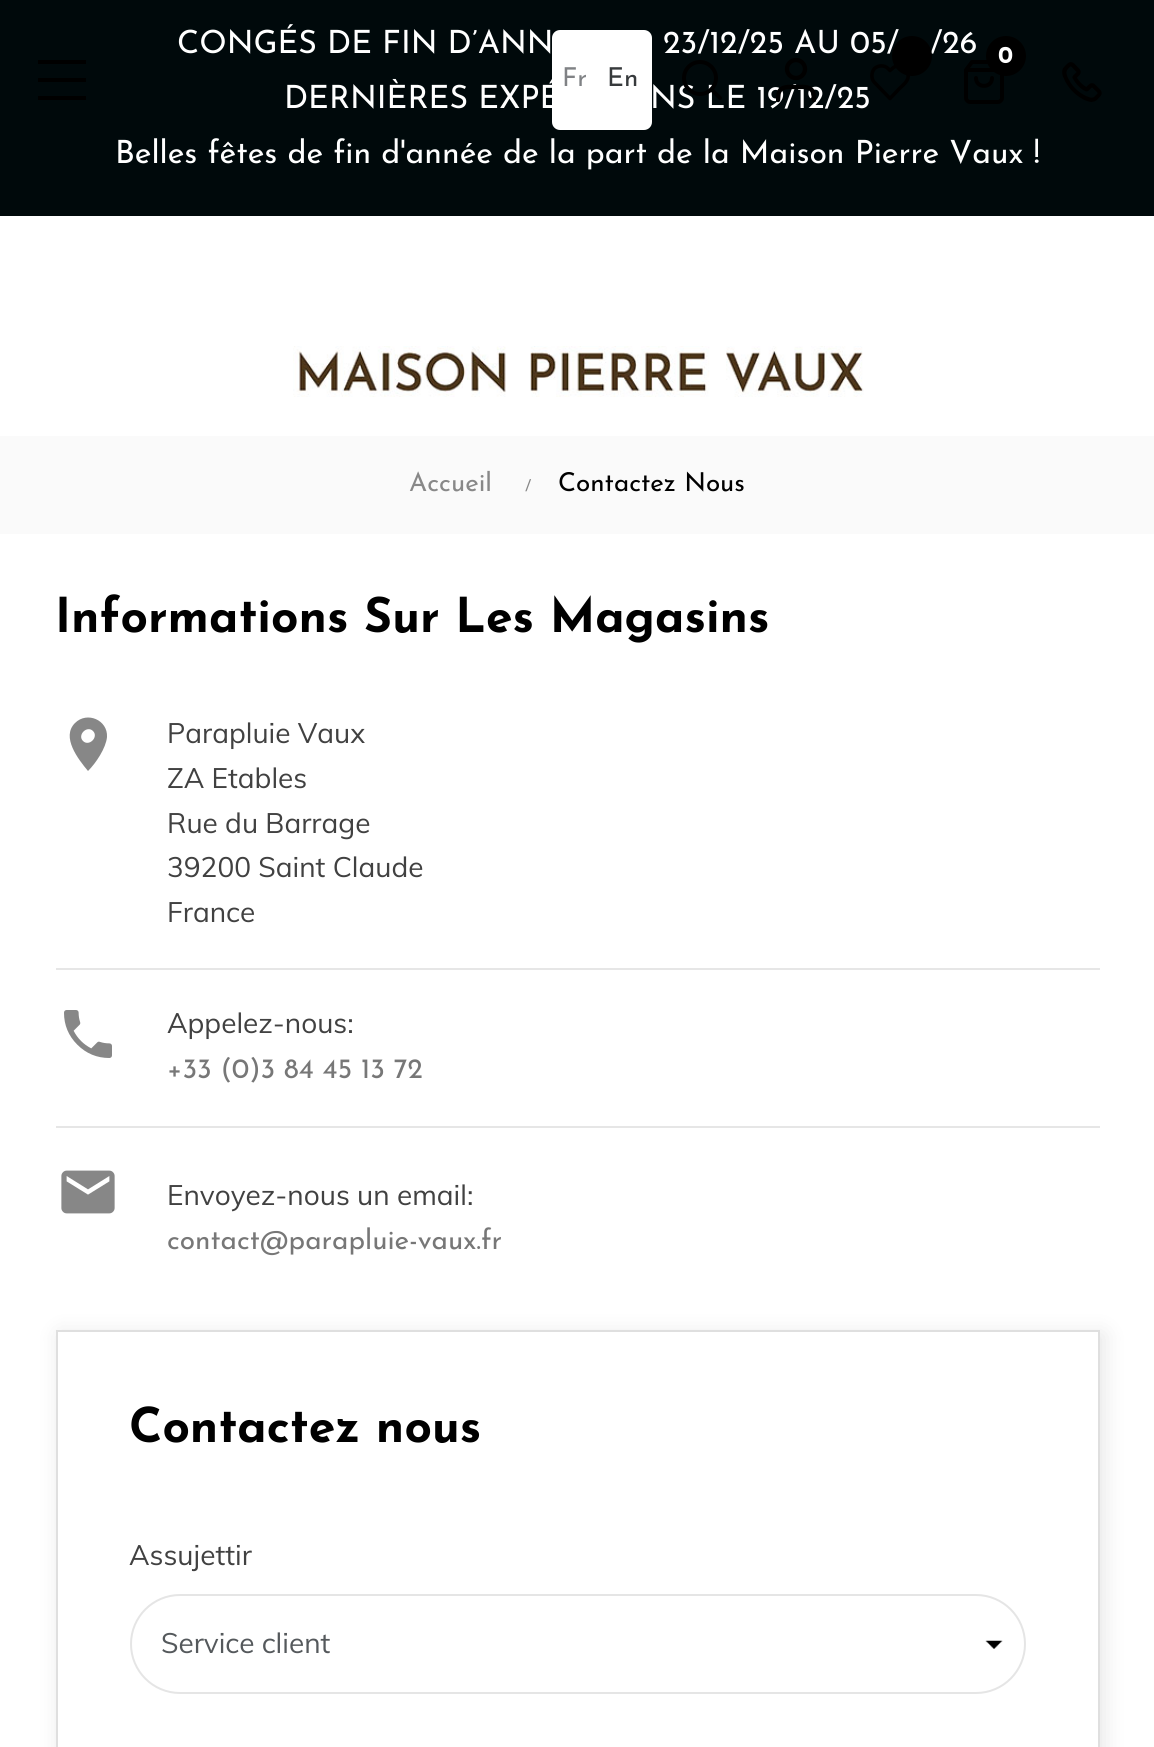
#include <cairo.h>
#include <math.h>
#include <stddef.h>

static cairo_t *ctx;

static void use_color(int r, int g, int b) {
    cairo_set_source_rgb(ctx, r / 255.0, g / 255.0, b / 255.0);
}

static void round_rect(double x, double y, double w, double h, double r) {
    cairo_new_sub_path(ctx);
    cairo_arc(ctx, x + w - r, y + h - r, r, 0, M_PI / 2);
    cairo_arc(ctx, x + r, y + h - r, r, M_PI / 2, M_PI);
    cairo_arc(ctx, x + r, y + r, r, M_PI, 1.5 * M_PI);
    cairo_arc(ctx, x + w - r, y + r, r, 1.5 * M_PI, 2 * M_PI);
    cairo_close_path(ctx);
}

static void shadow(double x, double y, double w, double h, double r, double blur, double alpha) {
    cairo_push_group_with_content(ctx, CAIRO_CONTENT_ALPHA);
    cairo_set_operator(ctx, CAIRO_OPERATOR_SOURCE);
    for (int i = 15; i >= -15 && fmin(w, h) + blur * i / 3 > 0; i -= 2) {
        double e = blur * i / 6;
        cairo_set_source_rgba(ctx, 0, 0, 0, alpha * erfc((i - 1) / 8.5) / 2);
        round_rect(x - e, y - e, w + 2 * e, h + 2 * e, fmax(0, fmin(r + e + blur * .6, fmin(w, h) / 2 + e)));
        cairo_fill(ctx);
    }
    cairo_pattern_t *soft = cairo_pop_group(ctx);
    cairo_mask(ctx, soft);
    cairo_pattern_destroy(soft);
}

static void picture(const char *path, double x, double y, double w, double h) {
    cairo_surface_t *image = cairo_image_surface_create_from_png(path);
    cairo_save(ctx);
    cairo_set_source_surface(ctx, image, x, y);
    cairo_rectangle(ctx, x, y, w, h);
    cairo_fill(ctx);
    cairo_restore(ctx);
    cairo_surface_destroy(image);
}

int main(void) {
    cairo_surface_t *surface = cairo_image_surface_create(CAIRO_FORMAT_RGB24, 1154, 1747);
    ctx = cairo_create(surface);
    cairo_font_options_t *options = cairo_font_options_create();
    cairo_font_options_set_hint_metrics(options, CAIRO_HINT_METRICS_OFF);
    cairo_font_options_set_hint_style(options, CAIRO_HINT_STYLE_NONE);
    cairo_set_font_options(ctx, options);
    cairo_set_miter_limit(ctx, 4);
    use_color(255, 255, 255);
    cairo_paint(ctx);
    use_color(0, 9, 11);
    cairo_rectangle(ctx, 0, 0, 1154, 216);
    cairo_fill(ctx);
    cairo_select_font_face(ctx, "Josefin Sans", CAIRO_FONT_SLANT_NORMAL, CAIRO_FONT_WEIGHT_NORMAL);
    cairo_set_font_size(ctx, 32);
    use_color(255, 255, 255);
    cairo_move_to(ctx, 177, 53);
    cairo_show_text(ctx, "CONGÉS DE FIN D’ANN");
    cairo_move_to(ctx, 663, 53);
    cairo_show_text(ctx, "23/12/25 AU 05/");
    cairo_move_to(ctx, 930, 53);
    cairo_show_text(ctx, "/26");
    cairo_move_to(ctx, 284, 108);
    cairo_show_text(ctx, "DERNIÈRES EXPÉ");
    cairo_move_to(ctx, 650, 108);
    cairo_show_text(ctx, "NS LE 19/12/25");
    cairo_move_to(ctx, 115, 163);
    cairo_show_text(ctx, "Belles fêtes de fin d'année de la part de la Maison Pierre Vaux !");
    use_color(0, 0, 0);
    cairo_rectangle(ctx, 38, 60, 48, 4);
    cairo_fill(ctx);
    cairo_rectangle(ctx, 38, 78, 48, 4);
    cairo_fill(ctx);
    cairo_rectangle(ctx, 38, 96, 48, 4);
    cairo_fill(ctx);
    cairo_new_path(ctx);
    cairo_move_to(ctx, 905.5, 68.5);
    cairo_curve_to(ctx, 902, 65.5, 897, 65, 893.5, 67.5);
    cairo_line_to(ctx, 890, 70.5);
    cairo_line_to(ctx, 888, 68.5);
    cairo_curve_to(ctx, 884.5, 65, 878.5, 65, 874.5, 68.5);
    cairo_curve_to(ctx, 871, 72.5, 871, 79, 874.5, 82.5);
    cairo_line_to(ctx, 890, 98.5);
    cairo_line_to(ctx, 899, 89);
    cairo_curve_to(ctx, 903, 85, 909.5, 80.5, 908, 74);
    cairo_curve_to(ctx, 907.5, 72, 906.5, 70, 905.5, 68.5);
    cairo_close_path(ctx);
    cairo_set_line_width(ctx, 3.6);
    cairo_set_line_cap(ctx, CAIRO_LINE_CAP_ROUND);
    cairo_set_line_join(ctx, CAIRO_LINE_JOIN_ROUND);
    cairo_stroke(ctx);
    cairo_arc(ctx, 912, 56, 20, 0, 2 * M_PI);
    cairo_fill(ctx);
    cairo_new_path(ctx);
    cairo_move_to(ctx, 972, 62);
    cairo_line_to(ctx, 966, 70);
    cairo_line_to(ctx, 966, 98);
    cairo_curve_to(ctx, 966, 100, 968, 102, 970, 102);
    cairo_line_to(ctx, 998, 102);
    cairo_curve_to(ctx, 1000, 102, 1002, 100, 1002, 98);
    cairo_line_to(ctx, 1002, 70);
    cairo_line_to(ctx, 996, 62);
    cairo_close_path(ctx);
    cairo_move_to(ctx, 966, 70);
    cairo_line_to(ctx, 1002, 70);
    cairo_move_to(ctx, 992, 78);
    cairo_curve_to(ctx, 992, 88.5, 976, 88.5, 976, 78);
    cairo_set_line_width(ctx, 4);
    cairo_stroke(ctx);
    cairo_arc(ctx, 1006, 56, 20, 0, 2 * M_PI);
    cairo_fill(ctx);
    cairo_select_font_face(ctx, "Josefin Sans", CAIRO_FONT_SLANT_NORMAL, CAIRO_FONT_WEIGHT_BOLD);
    cairo_set_font_size(ctx, 24);
    use_color(255, 255, 255);
    cairo_move_to(ctx, 998, 63);
    cairo_show_text(ctx, "0");
    round_rect(552, 30, 100, 100, 8);
    cairo_fill(ctx);
    cairo_select_font_face(ctx, "Josefin Sans", CAIRO_FONT_SLANT_NORMAL, CAIRO_FONT_WEIGHT_NORMAL);
    cairo_set_font_size(ctx, 26);
    use_color(128, 130, 133);
    cairo_move_to(ctx, 562, 86);
    cairo_show_text(ctx, "Fr");
    use_color(55, 58, 60);
    cairo_move_to(ctx, 607, 86);
    cairo_show_text(ctx, "En");
    cairo_new_path(ctx);
    cairo_arc(ctx, 700, 78, 16, 0, 2 * M_PI);
    use_color(0, 0, 0);
    cairo_set_line_cap(ctx, CAIRO_LINE_CAP_BUTT);
    cairo_set_line_join(ctx, CAIRO_LINE_JOIN_MITER);
    cairo_stroke(ctx);
    cairo_new_path(ctx);
    cairo_move_to(ctx, 720, 98);
    cairo_line_to(ctx, 711.5, 89.5);
    cairo_set_line_cap(ctx, CAIRO_LINE_CAP_ROUND);
    cairo_set_line_join(ctx, CAIRO_LINE_JOIN_ROUND);
    cairo_stroke(ctx);
    cairo_save(ctx);
    cairo_rectangle(ctx, 776, 58, 40, 46);
    cairo_clip(ctx);
    cairo_new_path(ctx);
    cairo_move_to(ctx, 814, 100);
    cairo_line_to(ctx, 813.5, 94);
    cairo_curve_to(ctx, 812, 85.5, 802.5, 87, 796, 87);
    cairo_curve_to(ctx, 789.5, 87, 780, 85.5, 778.5, 94);
    cairo_line_to(ctx, 778, 100);
    cairo_set_line_width(ctx, 4.4);
    cairo_stroke(ctx);
    cairo_restore(ctx);
    cairo_arc(ctx, 796, 69, 9, 0, 2 * M_PI);
    cairo_set_line_width(ctx, 4.4);
    cairo_set_line_cap(ctx, CAIRO_LINE_CAP_BUTT);
    cairo_set_line_join(ctx, CAIRO_LINE_JOIN_MITER);
    cairo_stroke(ctx);
    picture("img1.png", 1062, 62, 40, 40);
    picture("img2.png", 293, 346, 571, 51);
    use_color(250, 250, 250);
    cairo_rectangle(ctx, 0, 436, 1154, 98);
    cairo_fill(ctx);
    use_color(136, 136, 136);
    cairo_move_to(ctx, 409, 491);
    cairo_show_text(ctx, "Accueil");
    cairo_set_font_size(ctx, 16);
    cairo_move_to(ctx, 525, 491);
    cairo_show_text(ctx, "/");
    cairo_set_font_size(ctx, 26);
    use_color(0, 0, 0);
    cairo_move_to(ctx, 558, 491);
    cairo_show_text(ctx, "Contactez Nous");
    cairo_select_font_face(ctx, "Josefin Sans", CAIRO_FONT_SLANT_NORMAL, CAIRO_FONT_WEIGHT_BOLD);
    cairo_set_font_size(ctx, 48);
    cairo_move_to(ctx, 55, 632);
    cairo_show_text(ctx, "Informations Sur Les Magasins");
    use_color(135, 135, 135);
    cairo_new_path(ctx);
    cairo_move_to(ctx, 83, 741);
    cairo_curve_to(ctx, 89, 747, 99, 737, 93, 731);
    cairo_curve_to(ctx, 87, 725, 77, 735, 83, 741);
    cairo_close_path(ctx);
    cairo_move_to(ctx, 75, 723);
    cairo_curve_to(ctx, 87, 711, 108, 720, 107, 737);
    cairo_curve_to(ctx, 106, 748, 96, 763, 88, 771);
    cairo_curve_to(ctx, 78, 759, 61, 737, 75, 723);
    cairo_close_path(ctx);
    cairo_fill(ctx);
    cairo_select_font_face(ctx, "Muli", CAIRO_FONT_SLANT_NORMAL, CAIRO_FONT_WEIGHT_NORMAL);
    cairo_set_font_size(ctx, 28);
    use_color(65, 65, 65);
    cairo_move_to(ctx, 167, 743);
    cairo_show_text(ctx, "Parapluie Vaux");
    cairo_move_to(ctx, 167, 788);
    cairo_show_text(ctx, "ZA Etables");
    cairo_move_to(ctx, 167, 833);
    cairo_show_text(ctx, "Rue du Barrage");
    cairo_move_to(ctx, 167, 877);
    cairo_show_text(ctx, "39200 Saint Claude");
    cairo_move_to(ctx, 167, 922);
    cairo_show_text(ctx, "France");
    use_color(230, 230, 230);
    cairo_rectangle(ctx, 56, 968, 1044, 2);
    cairo_fill(ctx);
    picture("img3.png", 64, 1010, 48, 48);
    use_color(65, 65, 65);
    cairo_move_to(ctx, 167, 1033);
    cairo_show_text(ctx, "Appelez-nous:");
    cairo_select_font_face(ctx, "Josefin Sans", CAIRO_FONT_SLANT_NORMAL, CAIRO_FONT_WEIGHT_NORMAL);
    use_color(119, 119, 119);
    cairo_move_to(ctx, 167, 1078);
    cairo_show_text(ctx, "+33 (0)3 84 45 13 72");
    use_color(230, 230, 230);
    cairo_rectangle(ctx, 56, 1126, 1044, 2);
    cairo_fill(ctx);
    picture("img4.png", 61, 1170, 54, 44);
    cairo_select_font_face(ctx, "Muli", CAIRO_FONT_SLANT_NORMAL, CAIRO_FONT_WEIGHT_NORMAL);
    use_color(65, 65, 65);
    cairo_move_to(ctx, 167, 1205);
    cairo_show_text(ctx, "Envoyez-nous un email:");
    cairo_select_font_face(ctx, "Josefin Sans", CAIRO_FONT_SLANT_NORMAL, CAIRO_FONT_WEIGHT_NORMAL);
    use_color(119, 119, 119);
    cairo_move_to(ctx, 167, 1249);
    cairo_show_text(ctx, "contact@parapluie-vaux.fr");
    cairo_save(ctx);
    cairo_set_fill_rule(ctx, CAIRO_FILL_RULE_EVEN_ODD);
    cairo_new_path(ctx);
    cairo_move_to(ctx, 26, 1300);
    cairo_line_to(ctx, 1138, 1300);
    cairo_line_to(ctx, 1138, 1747);
    cairo_line_to(ctx, 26, 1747);
    cairo_close_path(ctx);
    cairo_move_to(ctx, 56, 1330);
    cairo_line_to(ctx, 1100, 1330);
    cairo_line_to(ctx, 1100, 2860);
    cairo_line_to(ctx, 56, 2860);
    cairo_close_path(ctx);
    cairo_clip(ctx);
    use_color(0, 0, 0);
    shadow(60, 1334, 1044, 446, 0, 11, 0.1);
    cairo_restore(ctx);
    cairo_rectangle(ctx, 57, 1331, 1042, 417);
    use_color(223, 223, 223);
    cairo_set_line_width(ctx, 2);
    cairo_stroke(ctx);
    cairo_select_font_face(ctx, "Josefin Sans", CAIRO_FONT_SLANT_NORMAL, CAIRO_FONT_WEIGHT_BOLD);
    cairo_set_font_size(ctx, 48);
    use_color(0, 0, 0);
    cairo_move_to(ctx, 129, 1442);
    cairo_show_text(ctx, "Contactez nous");
    cairo_select_font_face(ctx, "Muli", CAIRO_FONT_SLANT_NORMAL, CAIRO_FONT_WEIGHT_NORMAL);
    cairo_set_font_size(ctx, 28);
    use_color(65, 65, 65);
    cairo_move_to(ctx, 129, 1565);
    cairo_show_text(ctx, "Assujettir");
    picture("img5.png", 985, 1640, 18, 9);
    round_rect(131, 1595, 894, 98, 49);
    use_color(229, 229, 229);
    cairo_stroke(ctx);
    use_color(85, 89, 92);
    cairo_move_to(ctx, 161, 1653);
    cairo_show_text(ctx, "Service client");
    cairo_surface_write_to_png(surface, "result.png");
    cairo_font_options_destroy(options);
    cairo_destroy(ctx);
    cairo_surface_destroy(surface);
    return 0;
}
